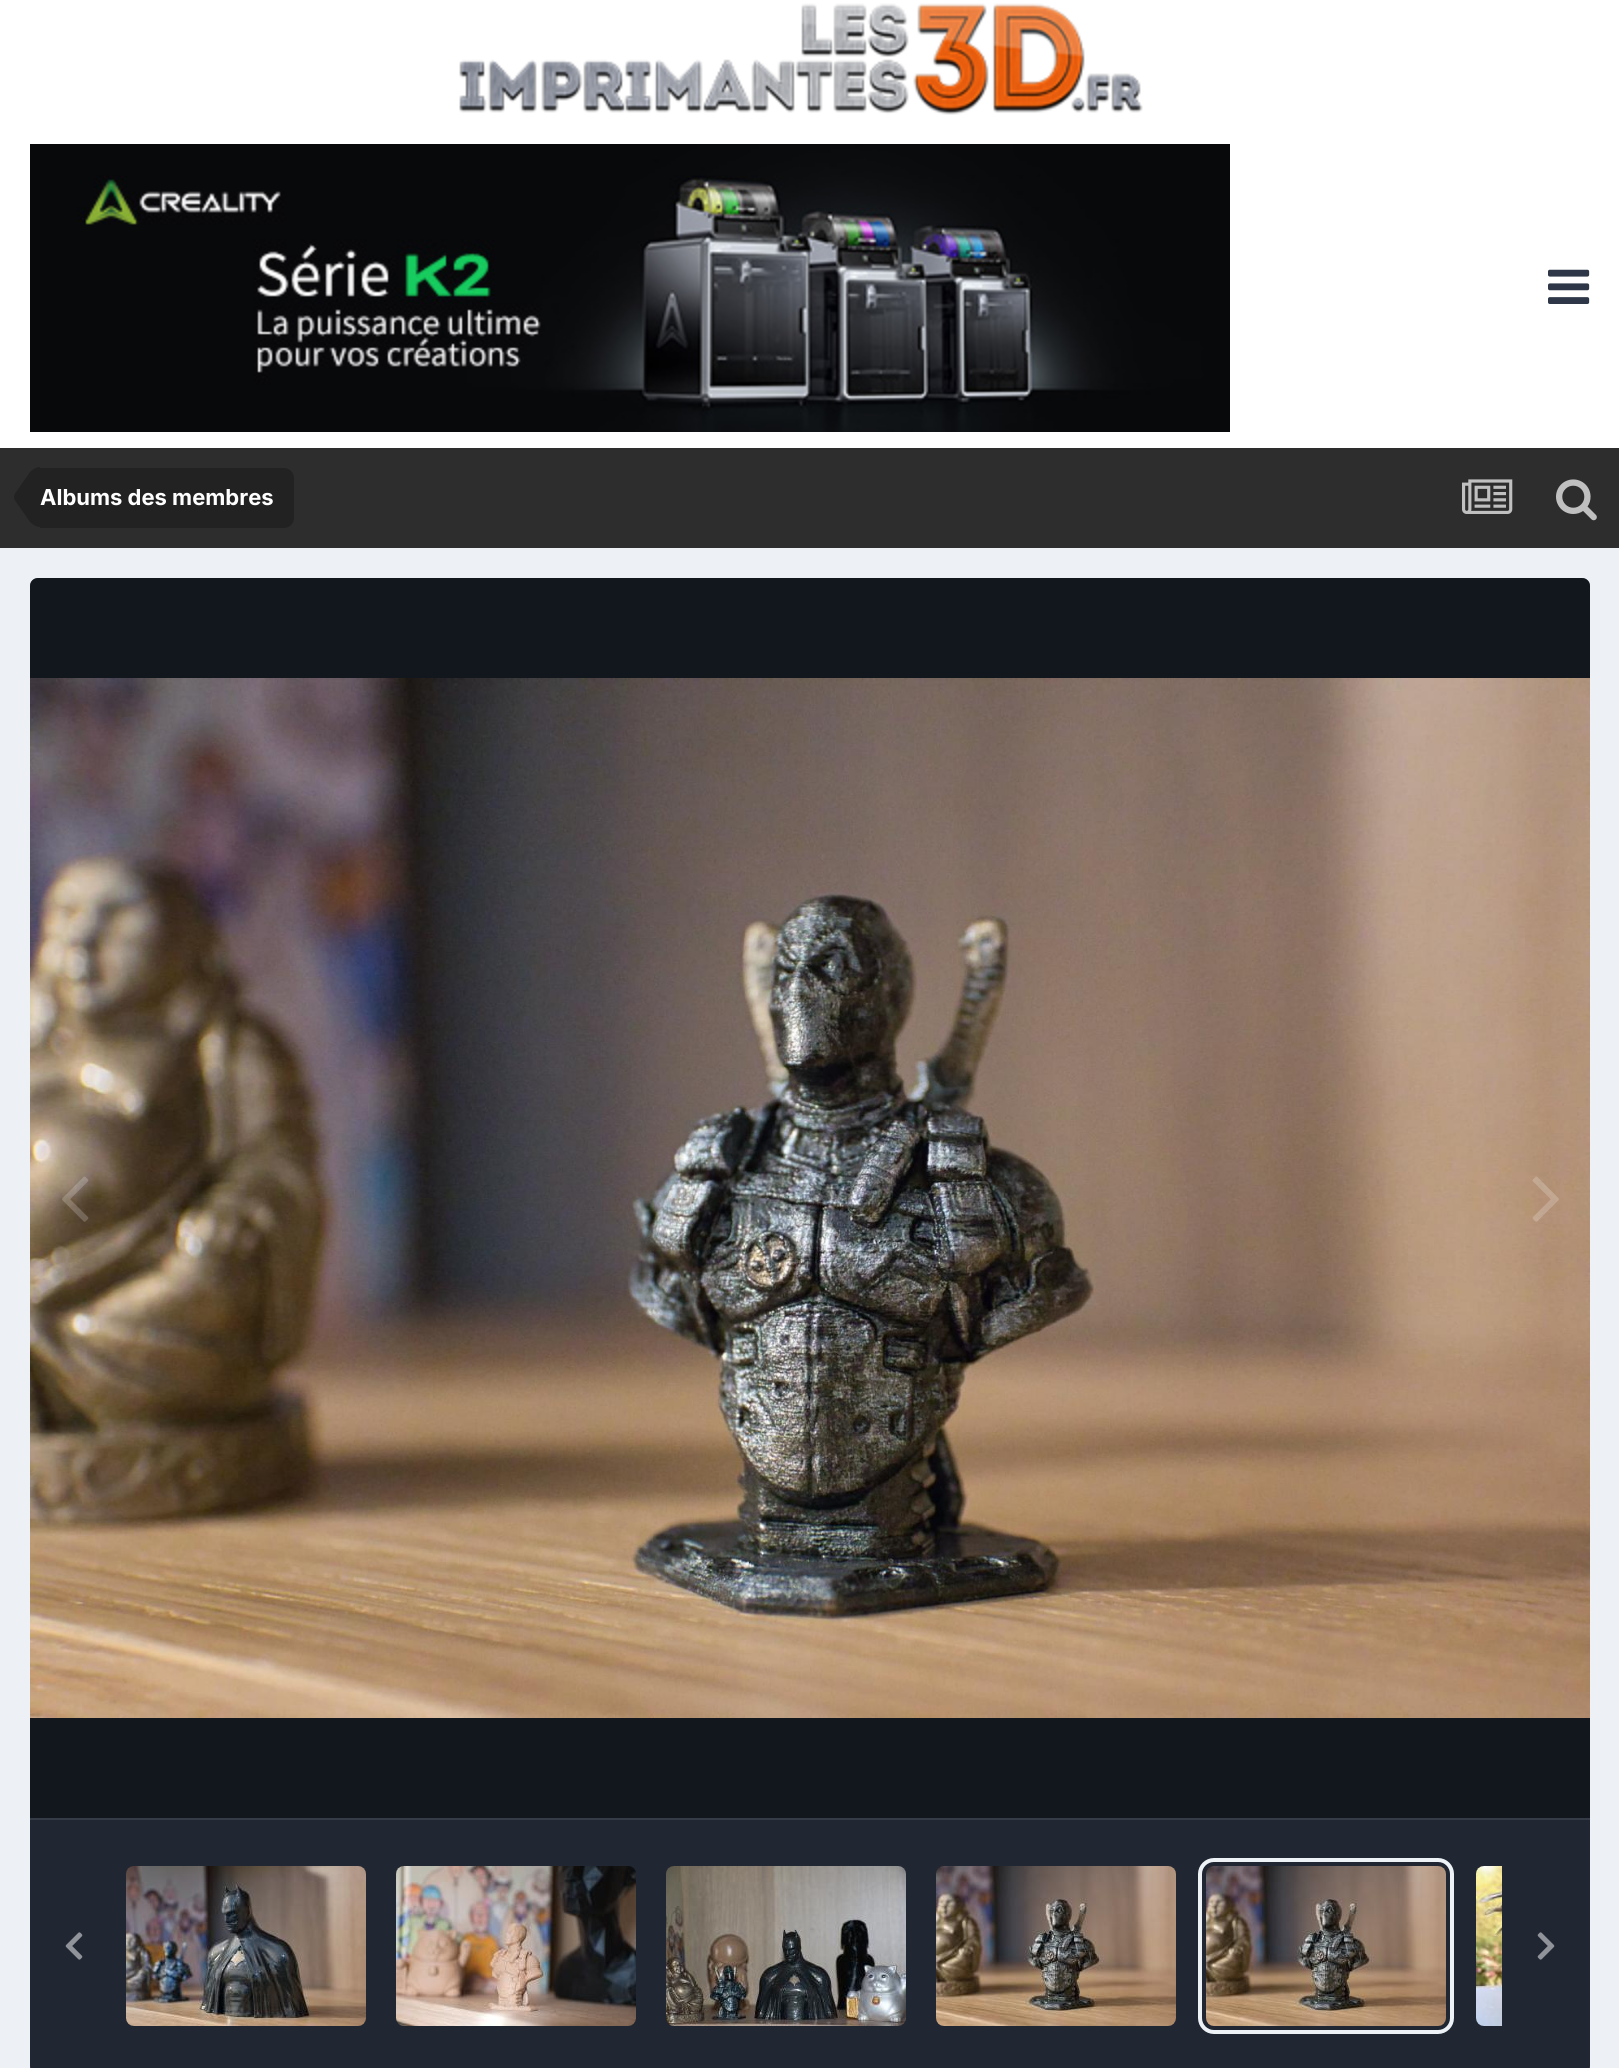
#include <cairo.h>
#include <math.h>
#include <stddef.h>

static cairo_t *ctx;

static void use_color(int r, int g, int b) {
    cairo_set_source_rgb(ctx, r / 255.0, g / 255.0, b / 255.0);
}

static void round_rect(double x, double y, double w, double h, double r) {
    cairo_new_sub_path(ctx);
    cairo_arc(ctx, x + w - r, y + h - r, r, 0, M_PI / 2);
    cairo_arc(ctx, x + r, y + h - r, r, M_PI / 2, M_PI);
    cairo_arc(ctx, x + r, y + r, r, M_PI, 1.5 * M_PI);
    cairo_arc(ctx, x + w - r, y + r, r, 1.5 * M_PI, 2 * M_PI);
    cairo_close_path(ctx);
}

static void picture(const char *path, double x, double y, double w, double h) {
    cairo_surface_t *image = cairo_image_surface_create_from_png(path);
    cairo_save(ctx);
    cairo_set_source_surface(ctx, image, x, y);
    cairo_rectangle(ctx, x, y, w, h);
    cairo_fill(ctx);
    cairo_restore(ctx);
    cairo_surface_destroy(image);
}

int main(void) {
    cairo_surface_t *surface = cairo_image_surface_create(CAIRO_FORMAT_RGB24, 1619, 2068);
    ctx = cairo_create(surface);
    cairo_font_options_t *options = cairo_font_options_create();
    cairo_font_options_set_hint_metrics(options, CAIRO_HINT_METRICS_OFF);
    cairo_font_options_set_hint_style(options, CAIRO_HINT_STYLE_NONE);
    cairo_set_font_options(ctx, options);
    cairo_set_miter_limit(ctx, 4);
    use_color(237, 240, 244);
    cairo_paint(ctx);
    use_color(255, 255, 255);
    cairo_rectangle(ctx, 0, 0, 1619, 448);
    cairo_fill(ctx);
    picture("img1.png", 459, 3, 684, 112);
    picture("img2.png", 30, 144, 1200, 288);
    picture("img3.png", 1548, 269, 42, 35);
    use_color(45, 45, 45);
    cairo_rectangle(ctx, 0, 448, 1619, 100);
    cairo_fill(ctx);
    use_color(34, 34, 34);
    cairo_new_path(ctx);
    cairo_move_to(ctx, 40, 468);
    cairo_line_to(ctx, 284, 468);
    cairo_curve_to(ctx, 289.5, 468, 294, 472.5, 294, 478);
    cairo_line_to(ctx, 294, 518);
    cairo_curve_to(ctx, 294, 523.5, 289.5, 528, 284, 528);
    cairo_line_to(ctx, 40, 528);
    cairo_close_path(ctx);
    cairo_fill(ctx);
    cairo_new_path(ctx);
    cairo_move_to(ctx, 40, 497);
    cairo_line_to(ctx, 40, 527);
    cairo_curve_to(ctx, 36.5, 527, 33, 525, 30, 522);
    cairo_line_to(ctx, 15, 500.5);
    cairo_curve_to(ctx, 14.5, 499.5, 14, 498.5, 14, 497);
    cairo_close_path(ctx);
    cairo_move_to(ctx, 40, 497);
    cairo_line_to(ctx, 14, 497);
    cairo_curve_to(ctx, 14, 495.5, 14.5, 494.5, 15, 493.5);
    cairo_line_to(ctx, 30, 472);
    cairo_curve_to(ctx, 33, 469, 36.5, 467, 40, 467);
    cairo_close_path(ctx);
    cairo_fill(ctx);
    cairo_select_font_face(ctx, "Inter", CAIRO_FONT_SLANT_NORMAL, CAIRO_FONT_WEIGHT_BOLD);
    cairo_set_font_size(ctx, 22);
    use_color(255, 255, 255);
    cairo_move_to(ctx, 40, 505);
    cairo_show_text(ctx, "Albums des membres");
    picture("img4.png", 1462, 479, 51, 35);
    picture("img5.png", 1556, 479, 41, 42);
    use_color(45, 55, 72);
    cairo_new_path(ctx);
    cairo_move_to(ctx, 38, 578);
    cairo_line_to(ctx, 1582, 578);
    cairo_curve_to(ctx, 1586.5, 578, 1590, 581.5, 1590, 586);
    cairo_line_to(ctx, 1590, 1818);
    cairo_line_to(ctx, 30, 1818);
    cairo_line_to(ctx, 30, 586);
    cairo_curve_to(ctx, 30, 581.5, 33.5, 578, 38, 578);
    cairo_close_path(ctx);
    cairo_fill(ctx);
    cairo_set_source_rgba(ctx, 0, 0, 0, 0.6);
    cairo_new_path(ctx);
    cairo_move_to(ctx, 38, 578);
    cairo_line_to(ctx, 1582, 578);
    cairo_curve_to(ctx, 1586.5, 578, 1590, 581.5, 1590, 586);
    cairo_line_to(ctx, 1590, 1818);
    cairo_line_to(ctx, 30, 1818);
    cairo_line_to(ctx, 30, 586);
    cairo_curve_to(ctx, 30, 581.5, 33.5, 578, 38, 578);
    cairo_close_path(ctx);
    cairo_fill(ctx);
    picture("img6.png", 30, 678, 1560, 1040);
    picture("img7.png", 62, 1176, 27, 46);
    picture("img8.png", 1532, 1176, 27, 46);
    use_color(45, 55, 72);
    cairo_new_path(ctx);
    cairo_move_to(ctx, 30, 1818);
    cairo_line_to(ctx, 1590, 1818);
    cairo_line_to(ctx, 1590, 2066);
    cairo_curve_to(ctx, 1590, 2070.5, 1586.5, 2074, 1582, 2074);
    cairo_line_to(ctx, 38, 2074);
    cairo_curve_to(ctx, 33.5, 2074, 30, 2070.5, 30, 2066);
    cairo_close_path(ctx);
    cairo_fill(ctx);
    cairo_set_source_rgba(ctx, 0, 0, 0, 0.3);
    cairo_rectangle(ctx, 30, 1820, 1560, 248);
    cairo_fill(ctx);
    use_color(54, 60, 71);
    cairo_rectangle(ctx, 30, 1818, 1560, 2);
    cairo_fill(ctx);
    use_color(20, 20, 20);
    round_rect(126, 1866, 240, 160, 8);
    cairo_fill(ctx);
    cairo_set_source_rgba(ctx, 0.176, 0.216, 0.282, 0.3);
    round_rect(126, 1866, 240, 160, 8);
    cairo_fill(ctx);
    picture("img9.png", 126, 1866, 240, 160);
    use_color(20, 20, 20);
    round_rect(396, 1866, 240, 160, 8);
    cairo_fill(ctx);
    cairo_set_source_rgba(ctx, 0.176, 0.216, 0.282, 0.3);
    round_rect(396, 1866, 240, 160, 8);
    cairo_fill(ctx);
    picture("img10.png", 396, 1866, 240, 160);
    use_color(20, 20, 20);
    round_rect(666, 1866, 240, 160, 8);
    cairo_fill(ctx);
    cairo_set_source_rgba(ctx, 0.176, 0.216, 0.282, 0.3);
    round_rect(666, 1866, 240, 160, 8);
    cairo_fill(ctx);
    picture("img11.png", 666, 1866, 240, 160);
    use_color(20, 20, 20);
    round_rect(936, 1866, 240, 160, 8);
    cairo_fill(ctx);
    cairo_set_source_rgba(ctx, 0.176, 0.216, 0.282, 0.3);
    round_rect(936, 1866, 240, 160, 8);
    cairo_fill(ctx);
    picture("img12.png", 936, 1866, 240, 160);
    use_color(20, 20, 20);
    round_rect(1206, 1866, 240, 160, 8);
    cairo_fill(ctx);
    cairo_set_source_rgba(ctx, 0.176, 0.216, 0.282, 0.3);
    round_rect(1206, 1866, 240, 160, 8);
    cairo_fill(ctx);
    round_rect(1200, 1860, 252, 172, 14);
    use_color(237, 242, 247);
    cairo_set_line_width(ctx, 4);
    cairo_stroke(ctx);
    picture("img13.png", 1206, 1866, 240, 160);
    use_color(20, 20, 20);
    cairo_new_path(ctx);
    cairo_move_to(ctx, 1484, 1866);
    cairo_line_to(ctx, 1502, 1866);
    cairo_line_to(ctx, 1502, 2026);
    cairo_line_to(ctx, 1484, 2026);
    cairo_curve_to(ctx, 1479.5, 2026, 1476, 2022.5, 1476, 2018);
    cairo_line_to(ctx, 1476, 1874);
    cairo_curve_to(ctx, 1476, 1869.5, 1479.5, 1866, 1484, 1866);
    cairo_close_path(ctx);
    cairo_fill(ctx);
    cairo_set_source_rgba(ctx, 0.176, 0.216, 0.282, 0.3);
    cairo_new_path(ctx);
    cairo_move_to(ctx, 1484, 1866);
    cairo_line_to(ctx, 1502, 1866);
    cairo_line_to(ctx, 1502, 2026);
    cairo_line_to(ctx, 1484, 2026);
    cairo_curve_to(ctx, 1479.5, 2026, 1476, 2022.5, 1476, 2018);
    cairo_line_to(ctx, 1476, 1874);
    cairo_curve_to(ctx, 1476, 1869.5, 1479.5, 1866, 1484, 1866);
    cairo_close_path(ctx);
    cairo_fill(ctx);
    picture("img14.png", 1476, 1866, 26, 160);
    picture("img15.png", 65, 1932, 18, 28);
    picture("img16.png", 1537, 1932, 18, 28);
    cairo_surface_write_to_png(surface, "result.png");
    cairo_font_options_destroy(options);
    cairo_destroy(ctx);
    cairo_surface_destroy(surface);
    return 0;
}
